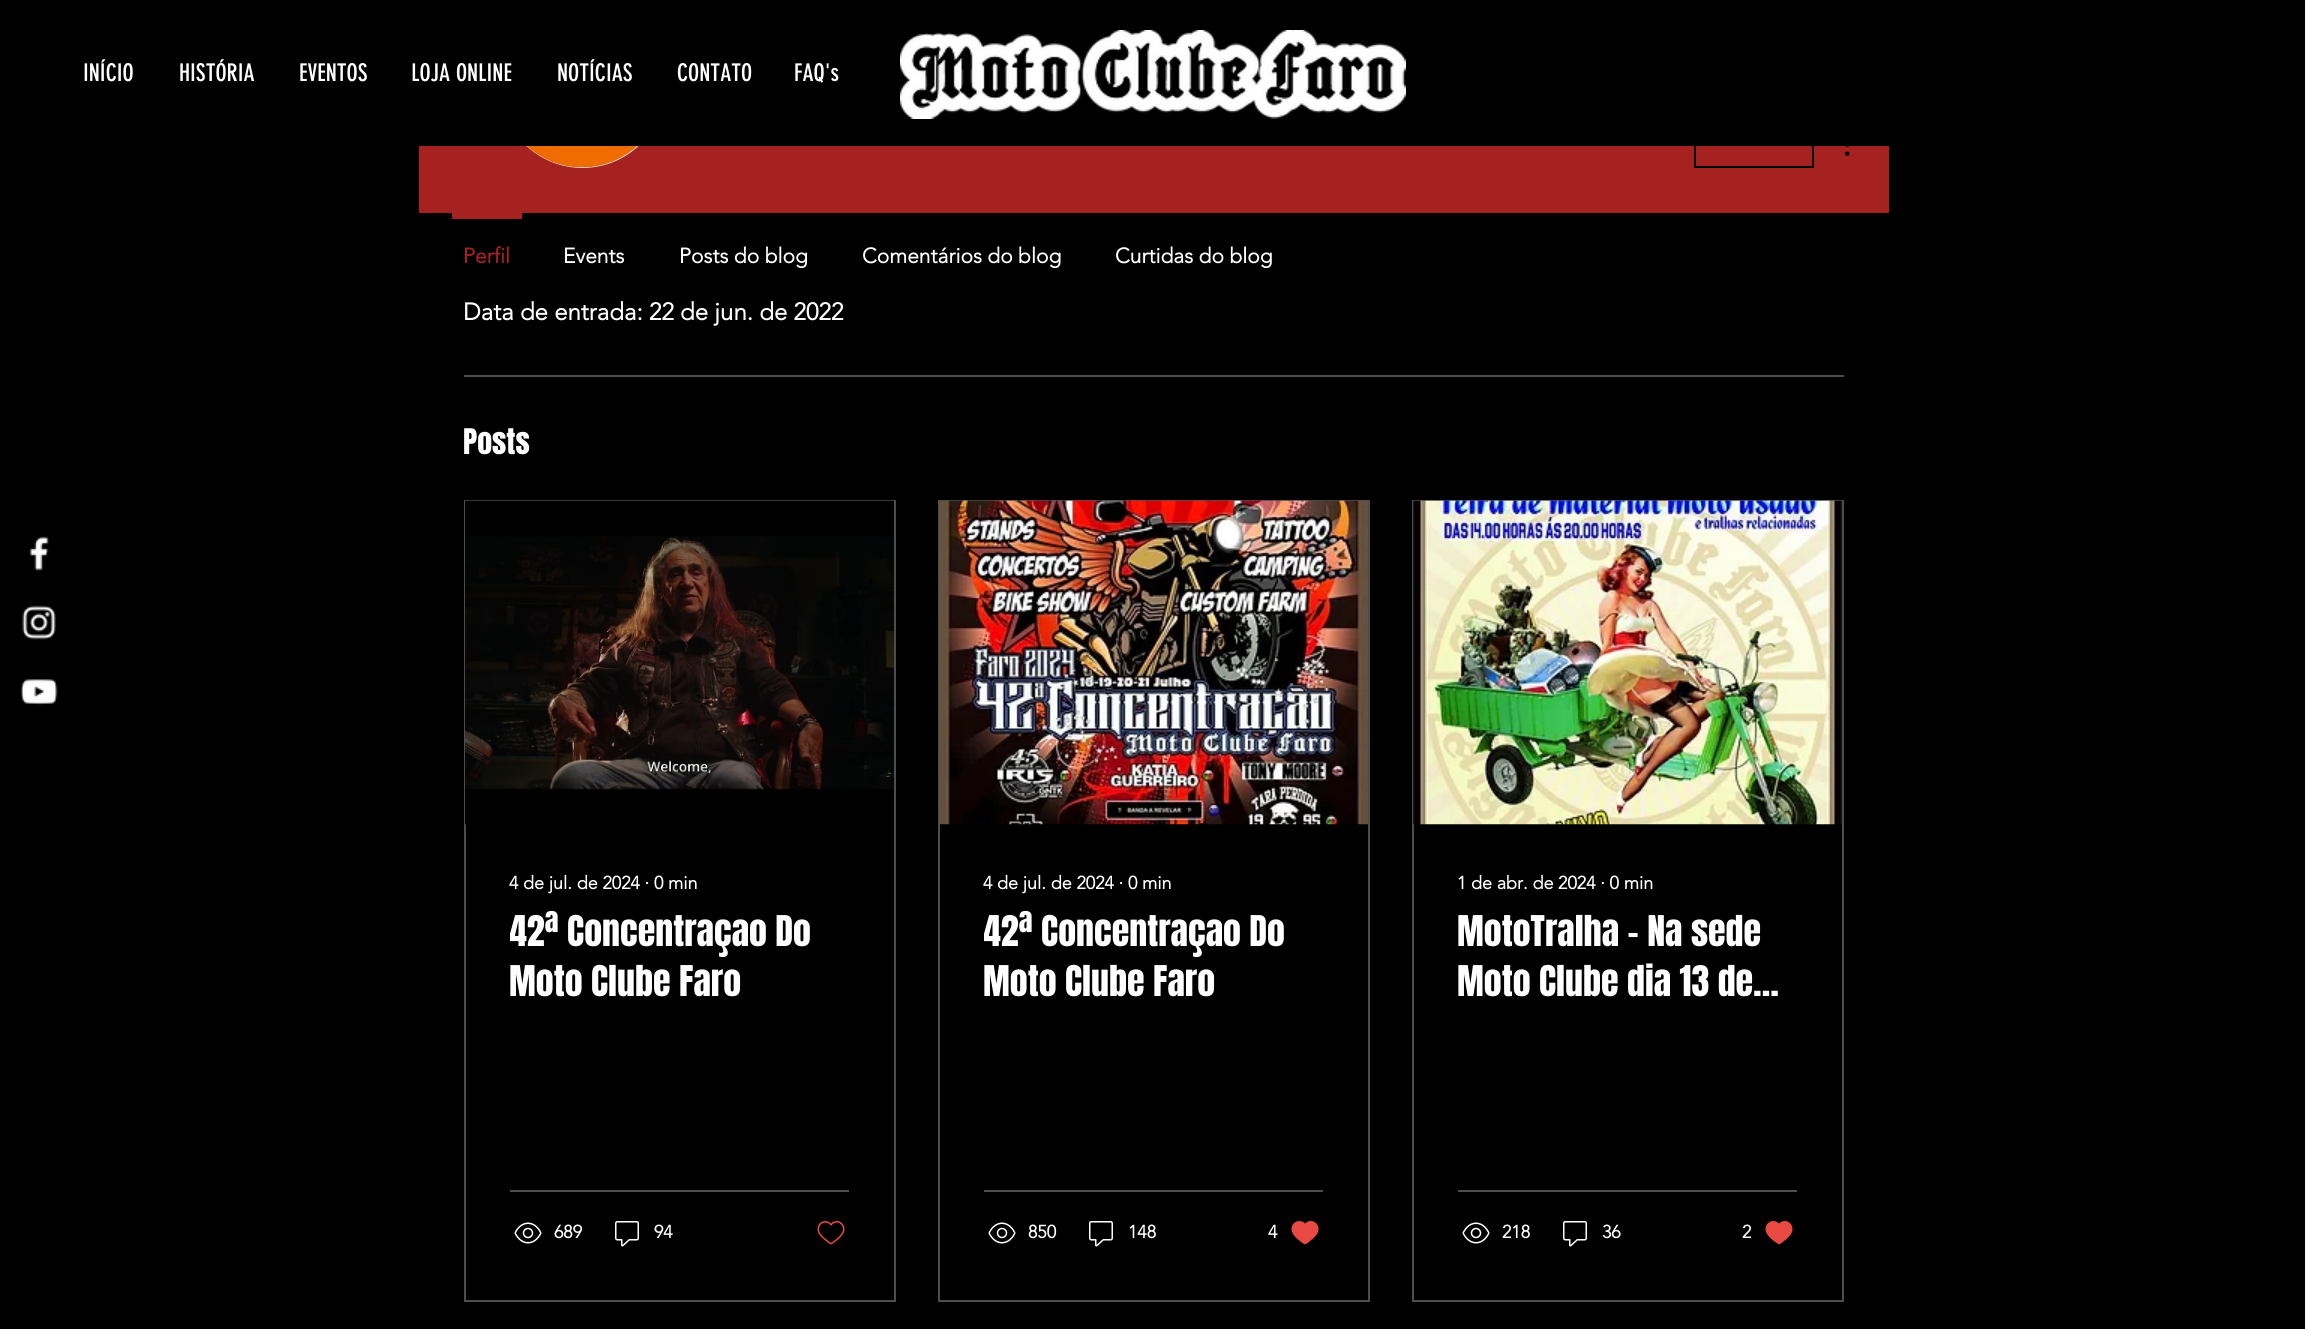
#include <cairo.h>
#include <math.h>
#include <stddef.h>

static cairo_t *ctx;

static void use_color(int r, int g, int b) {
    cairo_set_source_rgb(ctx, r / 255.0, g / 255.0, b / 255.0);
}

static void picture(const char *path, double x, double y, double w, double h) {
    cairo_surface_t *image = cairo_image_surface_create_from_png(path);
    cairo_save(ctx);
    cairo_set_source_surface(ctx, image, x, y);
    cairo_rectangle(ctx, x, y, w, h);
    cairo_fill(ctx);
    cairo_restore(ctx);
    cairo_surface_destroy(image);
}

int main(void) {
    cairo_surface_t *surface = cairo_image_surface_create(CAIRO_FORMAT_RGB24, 2305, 1329);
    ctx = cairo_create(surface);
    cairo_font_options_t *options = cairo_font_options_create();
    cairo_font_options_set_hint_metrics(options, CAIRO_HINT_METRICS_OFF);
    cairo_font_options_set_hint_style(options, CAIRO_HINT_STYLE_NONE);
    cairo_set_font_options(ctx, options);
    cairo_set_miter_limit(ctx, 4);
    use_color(0, 0, 0);
    cairo_paint(ctx);
    use_color(165, 34, 33);
    cairo_rectangle(ctx, 419, 146, 1470, 67);
    cairo_fill(ctx);
    use_color(216, 216, 216);
    cairo_arc(ctx, 582.5, 85.5, 82.5, 0, 2 * M_PI);
    cairo_fill(ctx);
    use_color(0, 0, 0);
    cairo_rectangle(ctx, 500, 3, 165, 143);
    cairo_fill(ctx);
    picture("img1.png", 900, 30, 506, 89);
    cairo_select_font_face(ctx, "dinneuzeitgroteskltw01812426", CAIRO_FONT_SLANT_NORMAL, CAIRO_FONT_WEIGHT_NORMAL);
    cairo_set_font_size(ctx, 24);
    use_color(255, 255, 255);
    cairo_move_to(ctx, 83, 81);
    cairo_show_text(ctx, "INÍCIO");
    cairo_move_to(ctx, 179, 81);
    cairo_show_text(ctx, "HISTÓRIA");
    cairo_move_to(ctx, 299, 81);
    cairo_show_text(ctx, "EVENTOS");
    cairo_move_to(ctx, 411, 81);
    cairo_show_text(ctx, "LOJA ONLINE");
    cairo_move_to(ctx, 557, 81);
    cairo_show_text(ctx, "NOTÍCIAS");
    cairo_move_to(ctx, 677, 81);
    cairo_show_text(ctx, "CONTATO");
    cairo_move_to(ctx, 794, 81);
    cairo_show_text(ctx, "FAQ's");
    picture("img2.png", 527, 146, 110, 22);
    cairo_rectangle(ctx, 1695, 121, 118, 46);
    use_color(0, 0, 0);
    cairo_stroke(ctx);
    picture("img3.png", 1845, 146, 5, 10);
    use_color(165, 34, 33);
    cairo_rectangle(ctx, 452, 213, 70, 6);
    cairo_fill(ctx);
    cairo_select_font_face(ctx, "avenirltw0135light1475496", CAIRO_FONT_SLANT_NORMAL, CAIRO_FONT_WEIGHT_BOLD);
    cairo_set_font_size(ctx, 21);
    cairo_move_to(ctx, 463, 263);
    cairo_show_text(ctx, "Perfil");
    use_color(255, 255, 255);
    cairo_move_to(ctx, 563, 263);
    cairo_show_text(ctx, "Events");
    cairo_move_to(ctx, 679, 263);
    cairo_show_text(ctx, "Posts do blog");
    cairo_move_to(ctx, 862, 263);
    cairo_show_text(ctx, "Comentários do blog");
    cairo_move_to(ctx, 1115, 263);
    cairo_show_text(ctx, "Curtidas do blog");
    picture("img4.png", 29, 536, 20, 35);
    picture("img5.png", 22, 605, 34, 35);
    picture("img6.png", 20, 679, 38, 26);
    cairo_set_font_size(ctx, 24);
    cairo_move_to(ctx, 463, 320);
    cairo_show_text(ctx, "Data de entrada: 22 de jun. de 2022");
    use_color(77, 77, 77);
    cairo_rectangle(ctx, 464, 375, 1380, 2);
    cairo_fill(ctx);
    cairo_select_font_face(ctx, "Anton", CAIRO_FONT_SLANT_NORMAL, CAIRO_FONT_WEIGHT_NORMAL);
    cairo_set_font_size(ctx, 30);
    use_color(255, 255, 255);
    cairo_move_to(ctx, 463, 454);
    cairo_show_text(ctx, "Posts");
    cairo_rectangle(ctx, 465, 501, 430, 800);
    use_color(77, 77, 77);
    cairo_stroke(ctx);
    picture("img7.png", 465, 500, 429, 325);
    cairo_select_font_face(ctx, "avenirltw0135light1475496", CAIRO_FONT_SLANT_NORMAL, CAIRO_FONT_WEIGHT_BOLD);
    cairo_set_font_size(ctx, 18);
    use_color(255, 255, 255);
    cairo_move_to(ctx, 509, 889);
    cairo_show_text(ctx, "4 de jul. de 2024 ∙ 0 min");
    cairo_save(ctx);
    cairo_rectangle(ctx, 510, 908, 339, 100);
    cairo_clip(ctx);
    cairo_select_font_face(ctx, "Anton", CAIRO_FONT_SLANT_NORMAL, CAIRO_FONT_WEIGHT_NORMAL);
    cairo_set_font_size(ctx, 36);
    cairo_move_to(ctx, 509, 946);
    cairo_show_text(ctx, "42ª Concentraçao Do");
    cairo_restore(ctx);
    cairo_select_font_face(ctx, "Anton", CAIRO_FONT_SLANT_NORMAL, CAIRO_FONT_WEIGHT_NORMAL);
    cairo_set_font_size(ctx, 36);
    cairo_move_to(ctx, 509, 996);
    cairo_show_text(ctx, "Moto Clube Faro");
    use_color(77, 77, 77);
    cairo_rectangle(ctx, 510, 1190, 339, 2);
    cairo_fill(ctx);
    picture("img8.png", 514, 1222, 28, 22);
    cairo_select_font_face(ctx, "avenirltw0135light1475496", CAIRO_FONT_SLANT_NORMAL, CAIRO_FONT_WEIGHT_BOLD);
    cairo_set_font_size(ctx, 18);
    use_color(255, 255, 255);
    cairo_move_to(ctx, 554, 1238);
    cairo_show_text(ctx, "689");
    picture("img9.png", 615, 1221, 24, 26);
    cairo_move_to(ctx, 654, 1238);
    cairo_show_text(ctx, "94");
    picture("img10.png", 817, 1221, 28, 24);
    cairo_rectangle(ctx, 939, 501, 430, 800);
    use_color(77, 77, 77);
    cairo_stroke(ctx);
    picture("img11.png", 939, 500, 429, 325);
    use_color(255, 255, 255);
    cairo_move_to(ctx, 983, 889);
    cairo_show_text(ctx, "4 de jul. de 2024 ∙ 0 min");
    cairo_save(ctx);
    cairo_rectangle(ctx, 984, 908, 339, 100);
    cairo_clip(ctx);
    cairo_select_font_face(ctx, "Anton", CAIRO_FONT_SLANT_NORMAL, CAIRO_FONT_WEIGHT_NORMAL);
    cairo_set_font_size(ctx, 36);
    cairo_move_to(ctx, 983, 946);
    cairo_show_text(ctx, "42ª Concentraçao Do");
    cairo_restore(ctx);
    cairo_select_font_face(ctx, "Anton", CAIRO_FONT_SLANT_NORMAL, CAIRO_FONT_WEIGHT_NORMAL);
    cairo_set_font_size(ctx, 36);
    cairo_move_to(ctx, 983, 996);
    cairo_show_text(ctx, "Moto Clube Faro");
    use_color(77, 77, 77);
    cairo_rectangle(ctx, 984, 1190, 339, 2);
    cairo_fill(ctx);
    picture("img8.png", 988, 1222, 28, 22);
    cairo_select_font_face(ctx, "avenirltw0135light1475496", CAIRO_FONT_SLANT_NORMAL, CAIRO_FONT_WEIGHT_BOLD);
    cairo_set_font_size(ctx, 18);
    use_color(255, 255, 255);
    cairo_move_to(ctx, 1028, 1238);
    cairo_show_text(ctx, "850");
    picture("img9.png", 1089, 1221, 24, 26);
    cairo_move_to(ctx, 1128, 1238);
    cairo_show_text(ctx, "148");
    cairo_move_to(ctx, 1268, 1238);
    cairo_show_text(ctx, "4");
    picture("img12.png", 1291, 1221, 28, 24);
    cairo_rectangle(ctx, 1413, 501, 430, 800);
    use_color(77, 77, 77);
    cairo_stroke(ctx);
    picture("img13.png", 1413, 500, 429, 325);
    use_color(255, 255, 255);
    cairo_move_to(ctx, 1457, 889);
    cairo_show_text(ctx, "1 de abr. de 2024 ∙ 0 min");
    cairo_select_font_face(ctx, "Anton", CAIRO_FONT_SLANT_NORMAL, CAIRO_FONT_WEIGHT_NORMAL);
    cairo_set_font_size(ctx, 36);
    cairo_move_to(ctx, 1457, 946);
    cairo_show_text(ctx, "MotoTralha - Na sede");
    cairo_move_to(ctx, 1457, 996);
    cairo_show_text(ctx, "Moto Clube dia 13 de…");
    use_color(77, 77, 77);
    cairo_rectangle(ctx, 1458, 1190, 339, 2);
    cairo_fill(ctx);
    picture("img8.png", 1462, 1222, 28, 22);
    cairo_select_font_face(ctx, "avenirltw0135light1475496", CAIRO_FONT_SLANT_NORMAL, CAIRO_FONT_WEIGHT_BOLD);
    cairo_set_font_size(ctx, 18);
    use_color(255, 255, 255);
    cairo_move_to(ctx, 1502, 1238);
    cairo_show_text(ctx, "218");
    picture("img9.png", 1563, 1221, 24, 26);
    cairo_move_to(ctx, 1602, 1238);
    cairo_show_text(ctx, "36");
    cairo_move_to(ctx, 1742, 1238);
    cairo_show_text(ctx, "2");
    picture("img12.png", 1765, 1221, 28, 24);
    cairo_surface_write_to_png(surface, "result.png");
    cairo_font_options_destroy(options);
    cairo_destroy(ctx);
    cairo_surface_destroy(surface);
    return 0;
}
